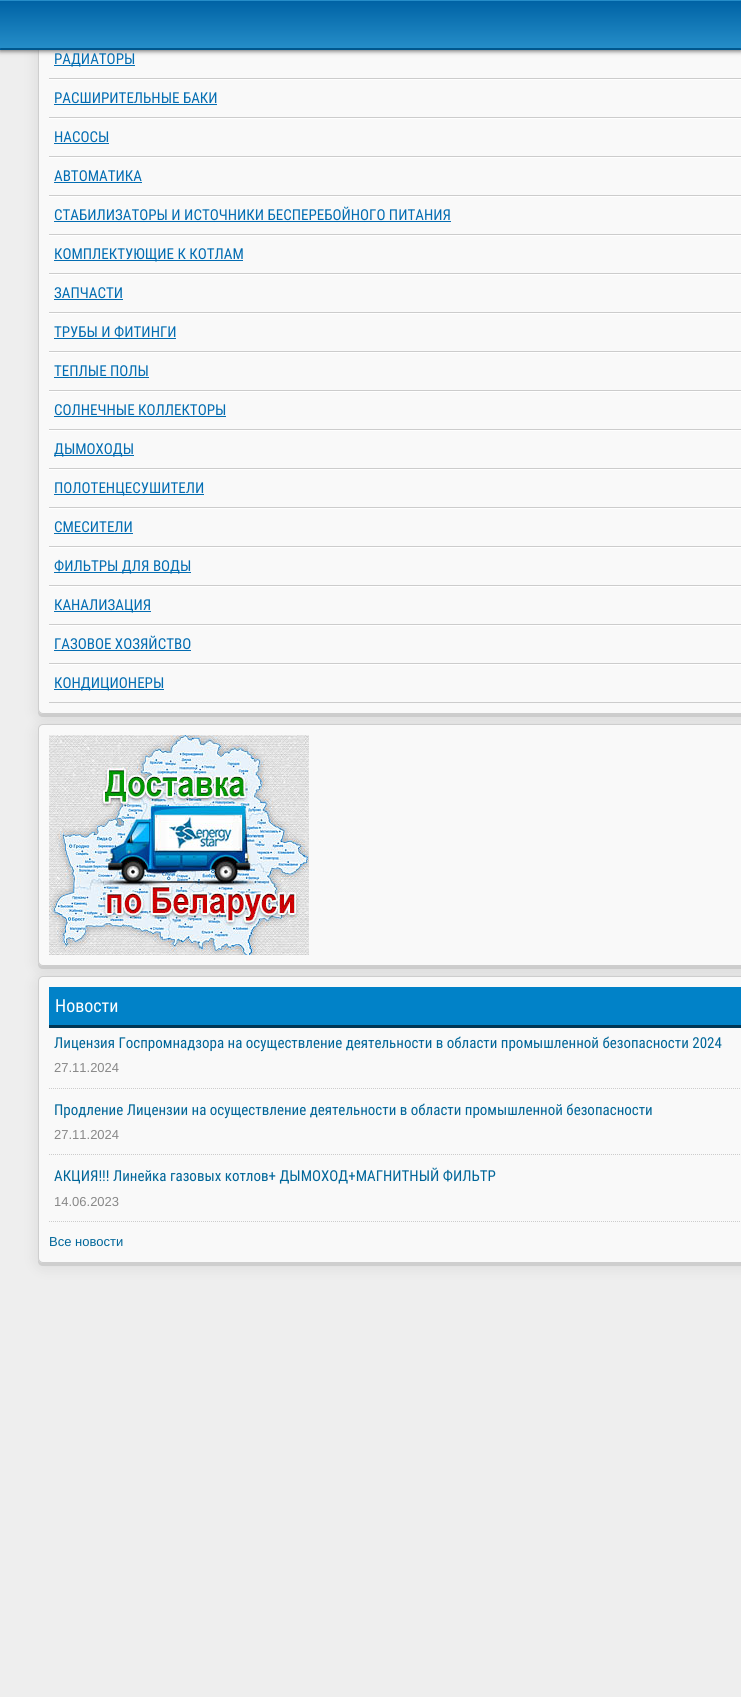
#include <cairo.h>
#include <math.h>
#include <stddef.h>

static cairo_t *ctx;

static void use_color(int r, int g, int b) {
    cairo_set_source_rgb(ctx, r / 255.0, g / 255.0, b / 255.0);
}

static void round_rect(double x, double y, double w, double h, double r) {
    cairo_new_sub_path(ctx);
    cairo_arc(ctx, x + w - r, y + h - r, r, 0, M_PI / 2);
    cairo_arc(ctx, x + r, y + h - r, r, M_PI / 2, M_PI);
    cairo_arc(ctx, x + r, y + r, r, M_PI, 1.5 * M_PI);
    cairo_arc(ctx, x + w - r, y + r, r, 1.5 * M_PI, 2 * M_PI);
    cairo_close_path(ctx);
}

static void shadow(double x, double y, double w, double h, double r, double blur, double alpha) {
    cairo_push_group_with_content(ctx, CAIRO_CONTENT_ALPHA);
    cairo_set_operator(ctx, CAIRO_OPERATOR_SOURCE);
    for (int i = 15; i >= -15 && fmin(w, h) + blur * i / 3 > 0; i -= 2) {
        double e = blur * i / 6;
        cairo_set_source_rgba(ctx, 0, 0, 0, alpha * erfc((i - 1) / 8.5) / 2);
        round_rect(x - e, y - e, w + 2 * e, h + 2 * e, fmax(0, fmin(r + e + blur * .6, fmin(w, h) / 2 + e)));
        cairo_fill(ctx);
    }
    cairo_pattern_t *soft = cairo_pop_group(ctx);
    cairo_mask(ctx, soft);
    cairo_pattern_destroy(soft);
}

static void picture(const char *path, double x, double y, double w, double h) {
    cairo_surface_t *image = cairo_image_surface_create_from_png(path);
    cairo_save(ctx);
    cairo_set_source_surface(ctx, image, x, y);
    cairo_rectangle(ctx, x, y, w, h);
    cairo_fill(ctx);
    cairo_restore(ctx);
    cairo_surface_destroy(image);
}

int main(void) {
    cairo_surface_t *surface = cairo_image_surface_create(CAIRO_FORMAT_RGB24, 741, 1697);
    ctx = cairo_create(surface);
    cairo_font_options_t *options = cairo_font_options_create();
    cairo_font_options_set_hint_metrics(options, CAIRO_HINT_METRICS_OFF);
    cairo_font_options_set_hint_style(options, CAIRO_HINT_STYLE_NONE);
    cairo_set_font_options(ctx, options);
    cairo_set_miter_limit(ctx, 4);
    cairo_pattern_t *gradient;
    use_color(238, 238, 238);
    cairo_paint(ctx);
    use_color(0, 0, 0);
    shadow(38, -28, 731, 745, 5, 7.5, 0.1);
    use_color(206, 206, 206);
    cairo_new_path(ctx);
    cairo_move_to(ctx, 38, 709);
    cairo_line_to(ctx, 38, 712);
    cairo_curve_to(ctx, 38, 715, 40, 717, 43, 717);
    cairo_line_to(ctx, 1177, 717);
    cairo_curve_to(ctx, 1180, 717, 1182, 715, 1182, 712);
    cairo_line_to(ctx, 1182, 709);
    cairo_curve_to(ctx, 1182, 712, 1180, 714, 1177, 714);
    cairo_line_to(ctx, 43, 714);
    cairo_curve_to(ctx, 40, 714, 38, 712, 38, 709);
    cairo_close_path(ctx);
    cairo_fill(ctx);
    use_color(249, 249, 249);
    round_rect(38.5, -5.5, 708, 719, 4.5);
    cairo_fill_preserve(ctx);
    use_color(206, 206, 206);
    cairo_set_line_width(ctx, 1);
    cairo_stroke(ctx);
    use_color(102, 102, 102);
    shadow(0, 1, 741, 50, 0, 2.5, 1);
    gradient = cairo_pattern_create_linear(371, -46, 371, 1);
    cairo_pattern_add_color_stop_rgba(gradient, 0, 0, 0.388, 0.647, 1);
    cairo_pattern_add_color_stop_rgba(gradient, 1, 0.145, 0.553, 0.784, 1);
    cairo_set_source(ctx, gradient);
    cairo_pattern_destroy(gradient);
    cairo_rectangle(ctx, 0, 0, 741, 1);
    cairo_fill(ctx);
    gradient = cairo_pattern_create_linear(371, 1, 371, 48);
    cairo_pattern_add_color_stop_rgba(gradient, 0, 0, 0.388, 0.647, 1);
    cairo_pattern_add_color_stop_rgba(gradient, 1, 0.145, 0.553, 0.784, 1);
    cairo_set_source(ctx, gradient);
    cairo_pattern_destroy(gradient);
    cairo_rectangle(ctx, 0, 1, 741, 47);
    cairo_fill(ctx);
    gradient = cairo_pattern_create_linear(371, 48, 371, 95);
    cairo_pattern_add_color_stop_rgba(gradient, 0, 0, 0.388, 0.647, 1);
    cairo_pattern_add_color_stop_rgba(gradient, 1, 0.145, 0.553, 0.784, 1);
    cairo_set_source(ctx, gradient);
    cairo_pattern_destroy(gradient);
    cairo_rectangle(ctx, 0, 48, 741, 2);
    cairo_fill(ctx);
    use_color(0, 87, 142);
    cairo_new_path(ctx);
    cairo_move_to(ctx, 741, 50);
    cairo_line_to(ctx, 0, 50);
    cairo_line_to(ctx, 1, 48);
    cairo_line_to(ctx, 740, 48);
    cairo_close_path(ctx);
    cairo_fill(ctx);
    use_color(204, 204, 204);
    cairo_rectangle(ctx, 49, 78, 692, 1);
    cairo_fill(ctx);
    use_color(3, 109, 178);
    cairo_rectangle(ctx, 54, 65, 81, 1);
    cairo_fill(ctx);
    cairo_select_font_face(ctx, "Roboto Condensed", CAIRO_FONT_SLANT_NORMAL, CAIRO_FONT_WEIGHT_NORMAL);
    cairo_set_font_size(ctx, 15);
    cairo_move_to(ctx, 54, 64);
    cairo_show_text(ctx, "РАДИАТОРЫ");
    use_color(255, 255, 255);
    cairo_rectangle(ctx, 49, 79, 692, 1);
    cairo_fill(ctx);
    use_color(204, 204, 204);
    cairo_rectangle(ctx, 49, 117, 692, 1);
    cairo_fill(ctx);
    use_color(3, 109, 178);
    cairo_move_to(ctx, 54, 103);
    cairo_show_text(ctx, "РАСШИРИТЕЛЬНЫЕ БАКИ");
    cairo_rectangle(ctx, 54, 104, 163, 1);
    cairo_fill(ctx);
    use_color(255, 255, 255);
    cairo_rectangle(ctx, 49, 118, 692, 1);
    cairo_fill(ctx);
    use_color(204, 204, 204);
    cairo_rectangle(ctx, 49, 156, 692, 1);
    cairo_fill(ctx);
    use_color(3, 109, 178);
    cairo_move_to(ctx, 54, 142);
    cairo_show_text(ctx, "НАСОСЫ");
    cairo_rectangle(ctx, 54, 143, 55, 1);
    cairo_fill(ctx);
    use_color(255, 255, 255);
    cairo_rectangle(ctx, 49, 157, 692, 1);
    cairo_fill(ctx);
    use_color(204, 204, 204);
    cairo_rectangle(ctx, 49, 195, 692, 1);
    cairo_fill(ctx);
    use_color(3, 109, 178);
    cairo_move_to(ctx, 54, 181);
    cairo_show_text(ctx, "АВТОМАТИКА");
    cairo_rectangle(ctx, 54, 182, 88, 1);
    cairo_fill(ctx);
    use_color(255, 255, 255);
    cairo_rectangle(ctx, 49, 196, 692, 1);
    cairo_fill(ctx);
    use_color(204, 204, 204);
    cairo_rectangle(ctx, 49, 234, 692, 1);
    cairo_fill(ctx);
    use_color(3, 109, 178);
    cairo_move_to(ctx, 54, 220);
    cairo_show_text(ctx, "СТАБИЛИЗАТОРЫ И ИСТОЧНИКИ БЕСПЕРЕБОЙНОГО ПИТАНИЯ");
    cairo_rectangle(ctx, 54, 221, 397, 1);
    cairo_fill(ctx);
    use_color(255, 255, 255);
    cairo_rectangle(ctx, 49, 235, 692, 1);
    cairo_fill(ctx);
    use_color(204, 204, 204);
    cairo_rectangle(ctx, 49, 273, 692, 1);
    cairo_fill(ctx);
    use_color(3, 109, 178);
    cairo_rectangle(ctx, 54, 260, 189, 1);
    cairo_fill(ctx);
    cairo_move_to(ctx, 54, 259);
    cairo_show_text(ctx, "КОМПЛЕКТУЮЩИЕ К КОТЛАМ");
    use_color(255, 255, 255);
    cairo_rectangle(ctx, 49, 274, 692, 1);
    cairo_fill(ctx);
    use_color(204, 204, 204);
    cairo_rectangle(ctx, 49, 312, 692, 1);
    cairo_fill(ctx);
    use_color(3, 109, 178);
    cairo_move_to(ctx, 54, 298);
    cairo_show_text(ctx, "ЗАПЧАСТИ");
    cairo_rectangle(ctx, 54, 299, 69, 1);
    cairo_fill(ctx);
    use_color(255, 255, 255);
    cairo_rectangle(ctx, 49, 313, 692, 1);
    cairo_fill(ctx);
    use_color(204, 204, 204);
    cairo_rectangle(ctx, 49, 351, 692, 1);
    cairo_fill(ctx);
    use_color(3, 109, 178);
    cairo_move_to(ctx, 54, 337);
    cairo_show_text(ctx, "ТРУБЫ И ФИТИНГИ");
    cairo_rectangle(ctx, 54, 338, 122, 1);
    cairo_fill(ctx);
    use_color(255, 255, 255);
    cairo_rectangle(ctx, 49, 352, 692, 1);
    cairo_fill(ctx);
    use_color(204, 204, 204);
    cairo_rectangle(ctx, 49, 390, 692, 1);
    cairo_fill(ctx);
    use_color(3, 109, 178);
    cairo_move_to(ctx, 54, 376);
    cairo_show_text(ctx, "ТЕПЛЫЕ ПОЛЫ");
    cairo_rectangle(ctx, 54, 377, 95, 1);
    cairo_fill(ctx);
    use_color(255, 255, 255);
    cairo_rectangle(ctx, 49, 391, 692, 1);
    cairo_fill(ctx);
    use_color(204, 204, 204);
    cairo_rectangle(ctx, 49, 429, 692, 1);
    cairo_fill(ctx);
    use_color(3, 109, 178);
    cairo_move_to(ctx, 54, 415);
    cairo_show_text(ctx, "СОЛНЕЧНЫЕ КОЛЛЕКТОРЫ");
    cairo_rectangle(ctx, 54, 416, 172, 1);
    cairo_fill(ctx);
    use_color(255, 255, 255);
    cairo_rectangle(ctx, 49, 430, 692, 1);
    cairo_fill(ctx);
    use_color(204, 204, 204);
    cairo_rectangle(ctx, 49, 468, 692, 1);
    cairo_fill(ctx);
    use_color(3, 109, 178);
    cairo_rectangle(ctx, 54, 455, 80, 1);
    cairo_fill(ctx);
    cairo_move_to(ctx, 54, 454);
    cairo_show_text(ctx, "ДЫМОХОДЫ");
    use_color(255, 255, 255);
    cairo_rectangle(ctx, 49, 469, 692, 1);
    cairo_fill(ctx);
    use_color(204, 204, 204);
    cairo_rectangle(ctx, 49, 507, 692, 1);
    cairo_fill(ctx);
    use_color(3, 109, 178);
    cairo_rectangle(ctx, 54, 494, 150, 1);
    cairo_fill(ctx);
    cairo_move_to(ctx, 54, 493);
    cairo_show_text(ctx, "ПОЛОТЕНЦЕСУШИТЕЛИ");
    use_color(255, 255, 255);
    cairo_rectangle(ctx, 49, 508, 692, 1);
    cairo_fill(ctx);
    use_color(204, 204, 204);
    cairo_rectangle(ctx, 49, 546, 692, 1);
    cairo_fill(ctx);
    use_color(3, 109, 178);
    cairo_move_to(ctx, 54, 532);
    cairo_show_text(ctx, "СМЕСИТЕЛИ");
    cairo_rectangle(ctx, 54, 533, 79, 1);
    cairo_fill(ctx);
    use_color(255, 255, 255);
    cairo_rectangle(ctx, 49, 547, 692, 1);
    cairo_fill(ctx);
    use_color(204, 204, 204);
    cairo_rectangle(ctx, 49, 585, 692, 1);
    cairo_fill(ctx);
    use_color(3, 109, 178);
    cairo_rectangle(ctx, 54, 572, 137, 1);
    cairo_fill(ctx);
    cairo_move_to(ctx, 54, 571);
    cairo_show_text(ctx, "ФИЛЬТРЫ ДЛЯ ВОДЫ");
    use_color(255, 255, 255);
    cairo_rectangle(ctx, 49, 586, 692, 1);
    cairo_fill(ctx);
    use_color(204, 204, 204);
    cairo_rectangle(ctx, 49, 624, 692, 1);
    cairo_fill(ctx);
    use_color(3, 109, 178);
    cairo_rectangle(ctx, 54, 611, 97, 1);
    cairo_fill(ctx);
    cairo_move_to(ctx, 54, 610);
    cairo_show_text(ctx, "КАНАЛИЗАЦИЯ");
    use_color(255, 255, 255);
    cairo_rectangle(ctx, 49, 625, 692, 1);
    cairo_fill(ctx);
    use_color(204, 204, 204);
    cairo_rectangle(ctx, 49, 663, 692, 1);
    cairo_fill(ctx);
    use_color(3, 109, 178);
    cairo_move_to(ctx, 54, 649);
    cairo_show_text(ctx, "ГАЗОВОЕ ХОЗЯЙСТВО");
    cairo_rectangle(ctx, 54, 650, 137, 1);
    cairo_fill(ctx);
    use_color(255, 255, 255);
    cairo_rectangle(ctx, 49, 664, 692, 1);
    cairo_fill(ctx);
    use_color(204, 204, 204);
    cairo_rectangle(ctx, 49, 702, 692, 1);
    cairo_fill(ctx);
    use_color(3, 109, 178);
    cairo_rectangle(ctx, 54, 689, 110, 1);
    cairo_fill(ctx);
    cairo_move_to(ctx, 54, 688);
    cairo_show_text(ctx, "КОНДИЦИОНЕРЫ");
    use_color(0, 0, 0);
    shadow(38, 727, 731, 242, 5, 7.5, 0.1);
    use_color(206, 206, 206);
    cairo_new_path(ctx);
    cairo_move_to(ctx, 38, 961);
    cairo_line_to(ctx, 38, 964);
    cairo_curve_to(ctx, 38, 967, 40, 969, 43, 969);
    cairo_line_to(ctx, 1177, 969);
    cairo_curve_to(ctx, 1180, 969, 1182, 967, 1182, 964);
    cairo_line_to(ctx, 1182, 961);
    cairo_curve_to(ctx, 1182, 964, 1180, 966, 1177, 966);
    cairo_line_to(ctx, 43, 966);
    cairo_curve_to(ctx, 40, 966, 38, 964, 38, 961);
    cairo_close_path(ctx);
    cairo_fill(ctx);
    use_color(249, 249, 249);
    round_rect(38.5, 724.5, 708, 241, 4.5);
    cairo_fill_preserve(ctx);
    use_color(206, 206, 206);
    cairo_stroke(ctx);
    picture("img1.png", 49, 735, 260, 220);
    use_color(0, 0, 0);
    shadow(38, 979, 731, 287, 5, 7.5, 0.1);
    use_color(206, 206, 206);
    cairo_new_path(ctx);
    cairo_move_to(ctx, 38, 1258);
    cairo_line_to(ctx, 38, 1261);
    cairo_curve_to(ctx, 38, 1264, 40, 1266, 43, 1266);
    cairo_line_to(ctx, 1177, 1266);
    cairo_curve_to(ctx, 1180, 1266, 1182, 1264, 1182, 1261);
    cairo_line_to(ctx, 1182, 1258);
    cairo_curve_to(ctx, 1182, 1261, 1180, 1263, 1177, 1263);
    cairo_line_to(ctx, 43, 1263);
    cairo_curve_to(ctx, 40, 1263, 38, 1261, 38, 1258);
    cairo_close_path(ctx);
    cairo_fill(ctx);
    use_color(249, 249, 249);
    round_rect(38.5, 976.5, 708, 286, 4.5);
    cairo_fill_preserve(ctx);
    use_color(206, 206, 206);
    cairo_stroke(ctx);
    use_color(1, 130, 200);
    cairo_rectangle(ctx, 49, 987, 692, 38);
    cairo_fill(ctx);
    use_color(0, 54, 84);
    cairo_rectangle(ctx, 49, 1025, 692, 3);
    cairo_fill(ctx);
    cairo_set_font_size(ctx, 18);
    use_color(255, 255, 255);
    cairo_move_to(ctx, 55, 1012);
    cairo_show_text(ctx, "Новости");
    cairo_set_font_size(ctx, 15);
    use_color(0, 102, 153);
    cairo_move_to(ctx, 54, 1048);
    cairo_show_text(ctx, "Лицензия Госпромнадзора на осуществление деятельности в области промышленной безопасности 2024");
    cairo_select_font_face(ctx, "Liberation Sans", CAIRO_FONT_SLANT_NORMAL, CAIRO_FONT_WEIGHT_NORMAL);
    cairo_set_font_size(ctx, 13);
    use_color(136, 136, 136);
    cairo_move_to(ctx, 54, 1072);
    cairo_show_text(ctx, "27.11.2024");
    cairo_new_path(ctx);
    cairo_move_to(ctx, 49, 1088.5);
    cairo_line_to(ctx, 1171, 1088.5);
    use_color(204, 204, 204);
    cairo_set_dash(ctx, (double[]){1, 1}, 2, 0);
    cairo_stroke(ctx);
    cairo_select_font_face(ctx, "Roboto Condensed", CAIRO_FONT_SLANT_NORMAL, CAIRO_FONT_WEIGHT_NORMAL);
    cairo_set_font_size(ctx, 15);
    use_color(0, 102, 153);
    cairo_move_to(ctx, 54, 1115);
    cairo_show_text(ctx, "Продление Лицензии на осуществление деятельности в области промышленной безопасности");
    cairo_select_font_face(ctx, "Liberation Sans", CAIRO_FONT_SLANT_NORMAL, CAIRO_FONT_WEIGHT_NORMAL);
    cairo_set_font_size(ctx, 13);
    use_color(136, 136, 136);
    cairo_move_to(ctx, 54, 1139);
    cairo_show_text(ctx, "27.11.2024");
    cairo_new_path(ctx);
    cairo_move_to(ctx, 49, 1154.5);
    cairo_line_to(ctx, 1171, 1154.5);
    use_color(204, 204, 204);
    cairo_stroke(ctx);
    cairo_select_font_face(ctx, "Roboto Condensed", CAIRO_FONT_SLANT_NORMAL, CAIRO_FONT_WEIGHT_NORMAL);
    cairo_set_font_size(ctx, 15);
    use_color(0, 102, 153);
    cairo_move_to(ctx, 54, 1181);
    cairo_show_text(ctx, "АКЦИЯ!!! Линейка газовых котлов+ ДЫМОХОД+МАГНИТНЫЙ ФИЛЬТР");
    cairo_select_font_face(ctx, "Liberation Sans", CAIRO_FONT_SLANT_NORMAL, CAIRO_FONT_WEIGHT_NORMAL);
    cairo_set_font_size(ctx, 13);
    use_color(136, 136, 136);
    cairo_move_to(ctx, 54, 1206);
    cairo_show_text(ctx, "14.06.2023");
    cairo_new_path(ctx);
    cairo_move_to(ctx, 49, 1221.5);
    cairo_line_to(ctx, 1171, 1221.5);
    use_color(204, 204, 204);
    cairo_stroke(ctx);
    use_color(0, 102, 153);
    cairo_move_to(ctx, 49, 1246);
    cairo_show_text(ctx, "Все новости");
    cairo_surface_write_to_png(surface, "result.png");
    cairo_font_options_destroy(options);
    cairo_destroy(ctx);
    cairo_surface_destroy(surface);
    return 0;
}
